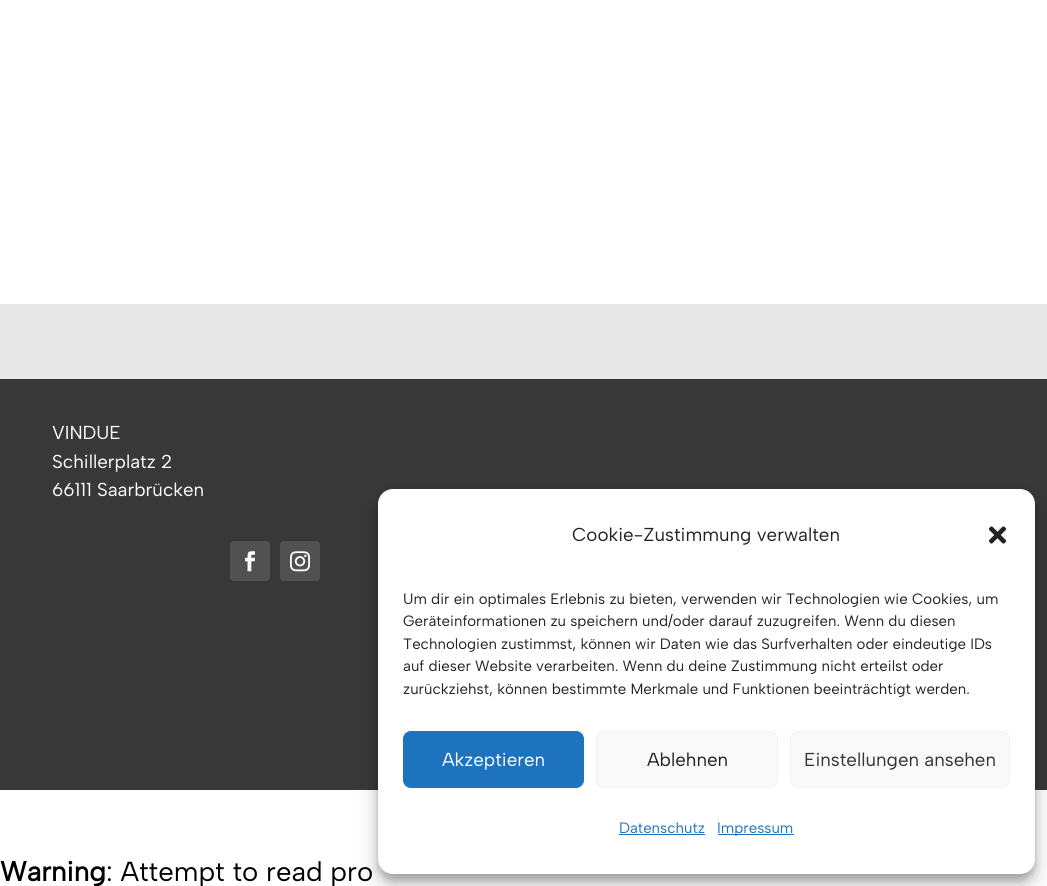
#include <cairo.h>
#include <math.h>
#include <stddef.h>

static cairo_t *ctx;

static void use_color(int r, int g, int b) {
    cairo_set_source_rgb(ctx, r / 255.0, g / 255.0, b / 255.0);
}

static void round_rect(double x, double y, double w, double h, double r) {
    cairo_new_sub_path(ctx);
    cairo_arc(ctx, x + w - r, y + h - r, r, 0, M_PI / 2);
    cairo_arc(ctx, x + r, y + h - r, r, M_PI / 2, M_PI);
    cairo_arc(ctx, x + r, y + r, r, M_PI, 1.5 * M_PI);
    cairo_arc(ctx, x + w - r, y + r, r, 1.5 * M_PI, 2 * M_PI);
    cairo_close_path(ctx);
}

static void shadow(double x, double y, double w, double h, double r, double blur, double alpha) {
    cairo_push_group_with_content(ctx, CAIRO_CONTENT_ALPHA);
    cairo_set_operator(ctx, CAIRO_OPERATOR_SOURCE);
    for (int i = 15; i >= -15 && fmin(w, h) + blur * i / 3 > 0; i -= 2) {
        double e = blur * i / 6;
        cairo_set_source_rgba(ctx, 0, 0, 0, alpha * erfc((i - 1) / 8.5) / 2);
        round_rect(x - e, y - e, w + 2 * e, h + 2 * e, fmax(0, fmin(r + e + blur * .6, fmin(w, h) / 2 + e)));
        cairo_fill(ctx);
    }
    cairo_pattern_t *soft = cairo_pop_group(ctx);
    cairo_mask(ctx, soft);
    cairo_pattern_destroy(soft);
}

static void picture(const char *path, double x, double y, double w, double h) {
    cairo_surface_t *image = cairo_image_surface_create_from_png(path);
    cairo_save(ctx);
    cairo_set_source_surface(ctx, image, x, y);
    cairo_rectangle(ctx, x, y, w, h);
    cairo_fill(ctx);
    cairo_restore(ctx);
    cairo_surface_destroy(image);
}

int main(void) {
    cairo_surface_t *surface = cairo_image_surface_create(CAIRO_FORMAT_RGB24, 1047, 886);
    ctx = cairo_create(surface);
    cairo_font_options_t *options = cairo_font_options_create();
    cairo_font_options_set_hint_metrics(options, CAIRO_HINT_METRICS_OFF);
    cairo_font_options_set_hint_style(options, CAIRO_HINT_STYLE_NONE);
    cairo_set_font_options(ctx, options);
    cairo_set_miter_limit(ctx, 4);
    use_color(255, 255, 255);
    cairo_paint(ctx);
    use_color(232, 232, 232);
    cairo_rectangle(ctx, 0, 304, 1047, 75);
    cairo_fill(ctx);
    use_color(56, 56, 56);
    cairo_rectangle(ctx, 0, 379, 1047, 411);
    cairo_fill(ctx);
    cairo_select_font_face(ctx, "Albert Sans", CAIRO_FONT_SLANT_NORMAL, CAIRO_FONT_WEIGHT_NORMAL);
    cairo_set_font_size(ctx, 18.75);
    use_color(255, 255, 255);
    cairo_move_to(ctx, 52, 439);
    cairo_show_text(ctx, "VINDUE");
    cairo_move_to(ctx, 52, 468);
    cairo_show_text(ctx, "Schillerplatz 2");
    cairo_move_to(ctx, 52, 496);
    cairo_show_text(ctx, "66111 Saarbrücken");
    use_color(81, 81, 81);
    round_rect(230, 541, 40, 40, 4);
    cairo_fill(ctx);
    picture("img1.png", 245, 551, 10, 21);
    round_rect(280, 541, 40, 40, 4);
    cairo_fill(ctx);
    picture("img2.png", 290, 551, 20, 21);
    use_color(0, 0, 0);
    shadow(378, 496, 657, 385, 15, 4, 0.23);
    shadow(378, 501, 657, 385, 15, 12.5, 0.19);
    use_color(255, 255, 255);
    round_rect(378, 489, 657, 385, 15);
    cairo_fill(ctx);
    use_color(34, 34, 34);
    cairo_move_to(ctx, 572, 541);
    cairo_show_text(ctx, "Cookie-Zustimmung verwalten");
    picture("img3.png", 988, 526, 19, 18);
    cairo_set_font_size(ctx, 15);
    cairo_move_to(ctx, 403, 604);
    cairo_show_text(ctx, "Um dir ein optimales Erlebnis zu bieten, verwenden wir Technologien wie Cookies, um");
    cairo_move_to(ctx, 403, 626);
    cairo_show_text(ctx, "Geräteinformationen zu speichern und/oder darauf zuzugreifen. Wenn du diesen");
    cairo_move_to(ctx, 403, 649);
    cairo_show_text(ctx, "Technologien zustimmst, können wir Daten wie das Surfverhalten oder eindeutige IDs");
    cairo_move_to(ctx, 403, 671);
    cairo_show_text(ctx, "auf dieser Website verarbeiten. Wenn du deine Zustimmung nicht erteilst oder");
    cairo_move_to(ctx, 403, 694);
    cairo_show_text(ctx, "zurückziehst, können bestimmte Merkmale und Funktionen beeinträchtigt werden.");
    use_color(30, 115, 190);
    round_rect(403.5, 731.5, 180, 56, 7.5);
    cairo_fill_preserve(ctx);
    cairo_set_line_width(ctx, 1);
    cairo_stroke(ctx);
    cairo_set_font_size(ctx, 18.75);
    use_color(255, 255, 255);
    cairo_move_to(ctx, 442, 766);
    cairo_show_text(ctx, "Akzeptieren");
    use_color(249, 249, 249);
    round_rect(596.5, 731.5, 181, 56, 7.5);
    cairo_fill_preserve(ctx);
    use_color(242, 242, 242);
    cairo_stroke(ctx);
    use_color(34, 34, 34);
    cairo_move_to(ctx, 647, 766);
    cairo_show_text(ctx, "Ablehnen");
    use_color(249, 249, 249);
    round_rect(790.5, 731.5, 219, 56, 7.5);
    cairo_fill_preserve(ctx);
    use_color(242, 242, 242);
    cairo_stroke(ctx);
    use_color(51, 51, 51);
    cairo_move_to(ctx, 804, 766);
    cairo_show_text(ctx, "Einstellungen ansehen");
    cairo_set_font_size(ctx, 15);
    use_color(30, 115, 190);
    cairo_move_to(ctx, 619, 833);
    cairo_show_text(ctx, "Datenschutz");
    cairo_rectangle(ctx, 619, 834, 86, 1);
    cairo_fill(ctx);
    cairo_rectangle(ctx, 718, 834, 76, 1);
    cairo_fill(ctx);
    cairo_move_to(ctx, 717, 833);
    cairo_show_text(ctx, "Impressum");
    cairo_select_font_face(ctx, "Albert Sans", CAIRO_FONT_SLANT_NORMAL, CAIRO_FONT_WEIGHT_BOLD);
    cairo_set_font_size(ctx, 27.5);
    use_color(0, 0, 0);
    cairo_move_to(ctx, 0, 881);
    cairo_show_text(ctx, "Warning");
    cairo_select_font_face(ctx, "Albert Sans", CAIRO_FONT_SLANT_NORMAL, CAIRO_FONT_WEIGHT_NORMAL);
    cairo_move_to(ctx, 106, 881);
    cairo_show_text(ctx, ": Attempt to read pro");
    cairo_surface_write_to_png(surface, "result.png");
    cairo_font_options_destroy(options);
    cairo_destroy(ctx);
    cairo_surface_destroy(surface);
    return 0;
}
